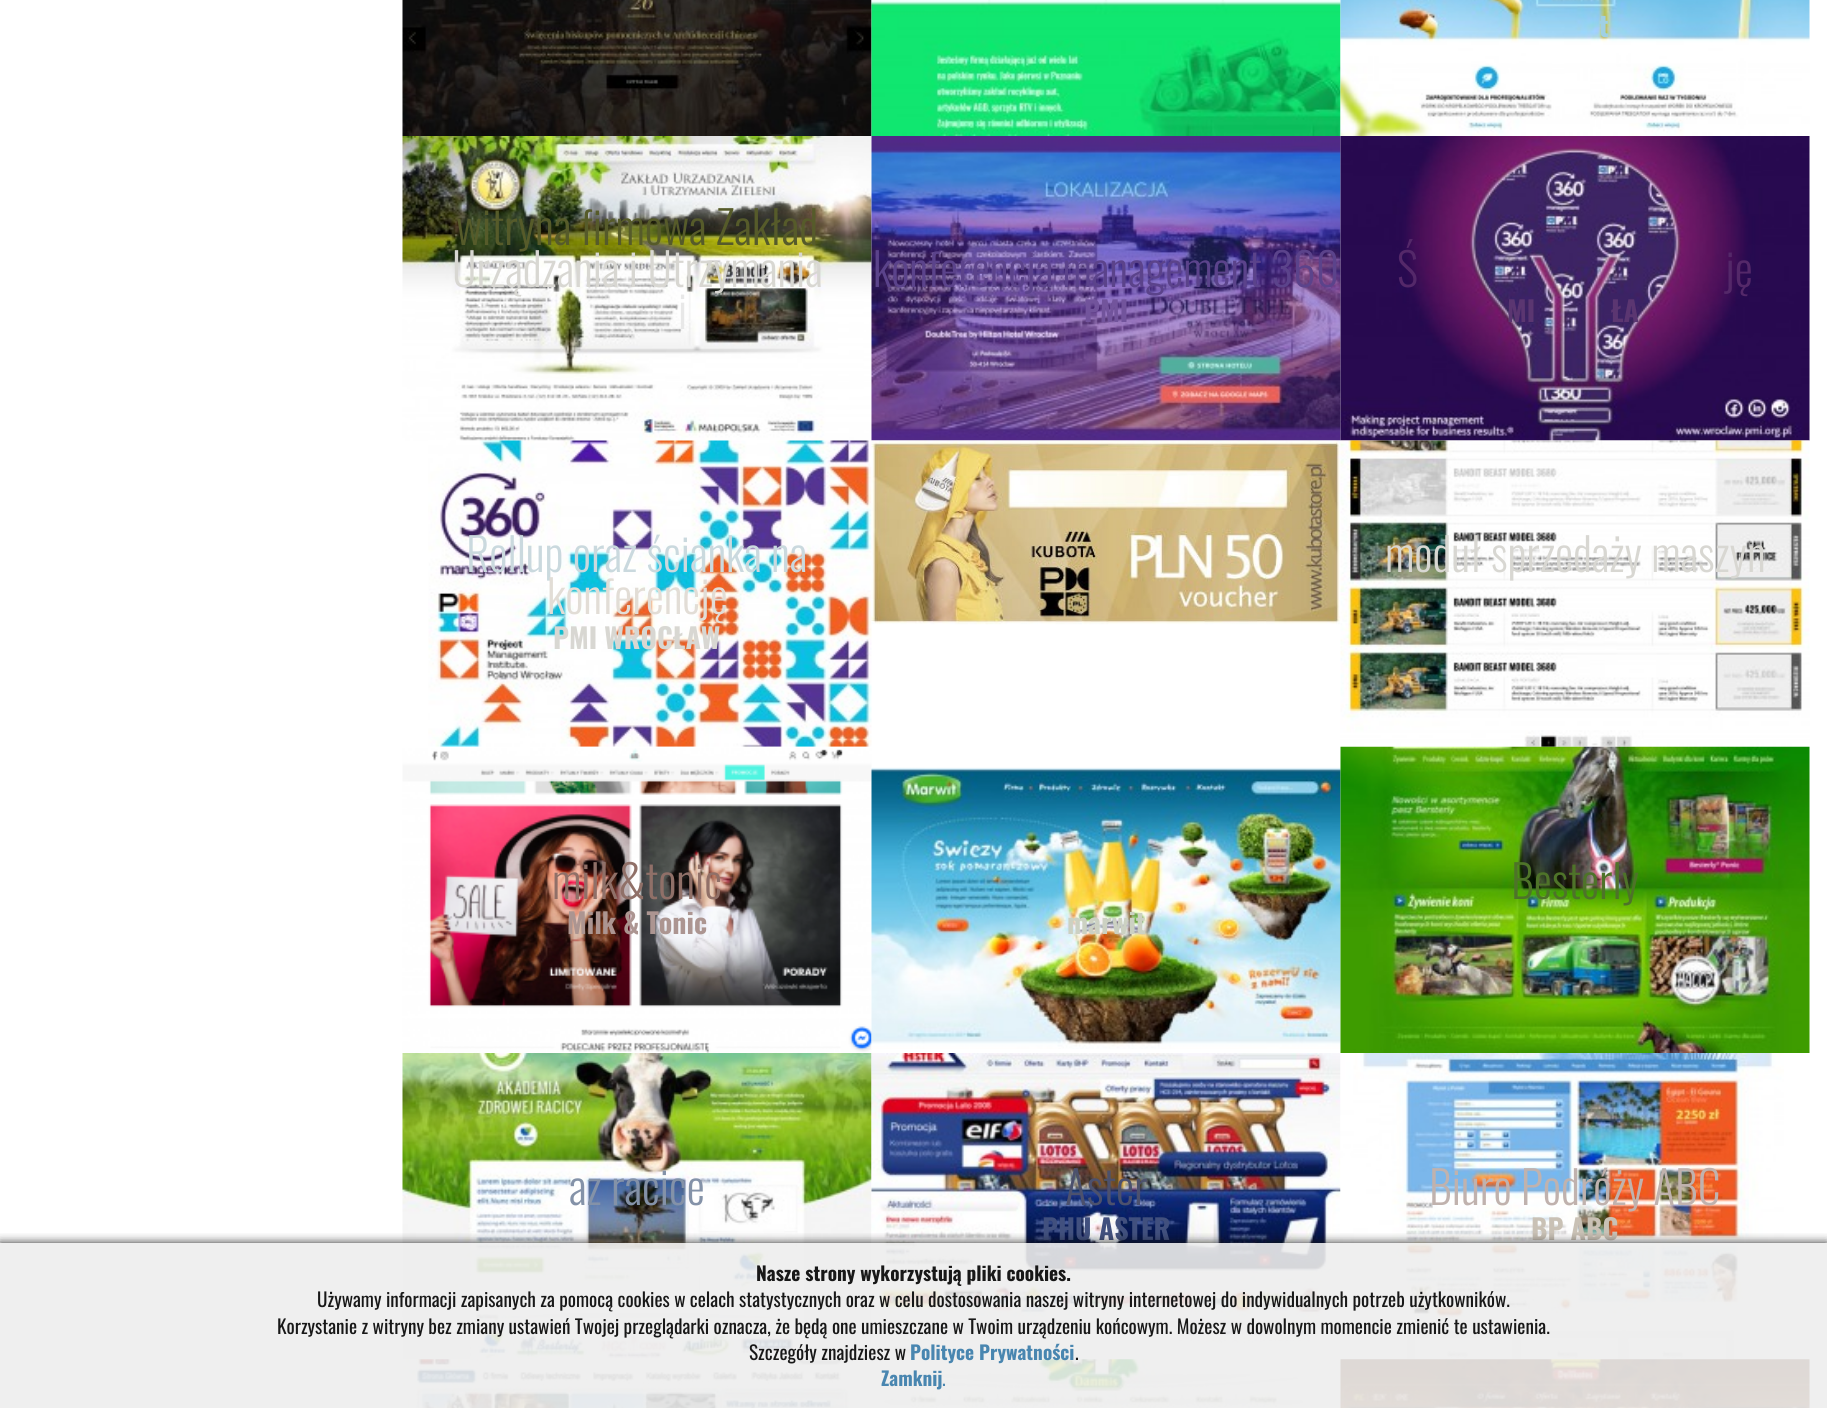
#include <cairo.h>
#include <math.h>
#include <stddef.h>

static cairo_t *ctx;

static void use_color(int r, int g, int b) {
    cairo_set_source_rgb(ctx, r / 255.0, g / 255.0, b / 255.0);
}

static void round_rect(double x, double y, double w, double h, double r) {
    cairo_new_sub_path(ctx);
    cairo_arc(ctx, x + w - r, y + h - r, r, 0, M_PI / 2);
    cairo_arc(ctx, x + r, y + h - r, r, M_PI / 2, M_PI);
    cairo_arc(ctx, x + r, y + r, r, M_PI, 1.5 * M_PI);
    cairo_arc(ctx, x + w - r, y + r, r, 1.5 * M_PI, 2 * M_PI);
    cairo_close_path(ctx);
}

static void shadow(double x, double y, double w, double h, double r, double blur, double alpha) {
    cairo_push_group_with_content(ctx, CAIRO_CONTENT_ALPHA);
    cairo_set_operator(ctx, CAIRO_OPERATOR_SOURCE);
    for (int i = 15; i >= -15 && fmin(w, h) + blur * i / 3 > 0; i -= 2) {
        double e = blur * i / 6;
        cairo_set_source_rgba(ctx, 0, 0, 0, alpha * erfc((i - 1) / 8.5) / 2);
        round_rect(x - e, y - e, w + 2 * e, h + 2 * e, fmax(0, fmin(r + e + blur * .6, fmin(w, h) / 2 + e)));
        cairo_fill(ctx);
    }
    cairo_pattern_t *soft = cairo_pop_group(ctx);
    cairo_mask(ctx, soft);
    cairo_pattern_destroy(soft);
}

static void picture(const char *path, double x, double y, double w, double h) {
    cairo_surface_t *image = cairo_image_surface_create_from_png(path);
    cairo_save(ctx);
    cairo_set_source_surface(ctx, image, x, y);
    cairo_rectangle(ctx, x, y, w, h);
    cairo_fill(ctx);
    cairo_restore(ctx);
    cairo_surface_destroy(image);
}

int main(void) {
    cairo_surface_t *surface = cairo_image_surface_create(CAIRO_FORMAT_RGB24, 1827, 1408);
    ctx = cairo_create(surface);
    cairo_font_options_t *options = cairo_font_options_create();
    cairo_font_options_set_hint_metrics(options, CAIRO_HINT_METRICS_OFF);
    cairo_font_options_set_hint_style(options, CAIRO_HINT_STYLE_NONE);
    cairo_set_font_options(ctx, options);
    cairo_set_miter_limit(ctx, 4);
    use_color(255, 255, 255);
    cairo_paint(ctx);
    picture("img1.png", 402, 0, 470, 136);
    picture("img2.png", 871, 0, 470, 136);
    picture("img3.png", 1340, 0, 470, 136);
    cairo_select_font_face(ctx, "Oswald", CAIRO_FONT_SLANT_NORMAL, CAIRO_FONT_WEIGHT_BOLD);
    cairo_set_font_size(ctx, 28);
    use_color(160, 208, 228);
    cairo_move_to(ctx, 1599, 37);
    cairo_show_text(ctx, "t");
    picture("img4.png", 402, 136, 470, 305);
    cairo_select_font_face(ctx, "Oswald Light", CAIRO_FONT_SLANT_NORMAL, CAIRO_FONT_WEIGHT_NORMAL);
    cairo_set_font_size(ctx, 45.5);
    use_color(86, 91, 42);
    cairo_move_to(ctx, 456, 245);
    cairo_show_text(ctx, "witryna firmowa Zakład");
    use_color(216, 215, 210);
    cairo_move_to(ctx, 452, 287);
    cairo_show_text(ctx, "Urządzania i Utrzymania");
    use_color(232, 232, 232);
    cairo_move_to(ctx, 678, 329);
    cairo_show_text(ctx, "i");
    picture("img5.png", 871, 136, 470, 305);
    use_color(91, 67, 139);
    cairo_move_to(ctx, 873, 287);
    cairo_show_text(ctx, "konferencja management 360");
    cairo_select_font_face(ctx, "Oswald", CAIRO_FONT_SLANT_NORMAL, CAIRO_FONT_WEIGHT_BOLD);
    cairo_set_font_size(ctx, 28);
    use_color(114, 84, 156);
    cairo_move_to(ctx, 1084, 322);
    cairo_show_text(ctx, "PMI");
    picture("img6.png", 1340, 136, 470, 305);
    cairo_select_font_face(ctx, "Oswald Light", CAIRO_FONT_SLANT_NORMAL, CAIRO_FONT_WEIGHT_NORMAL);
    cairo_set_font_size(ctx, 45.5);
    use_color(84, 40, 105);
    cairo_move_to(ctx, 1397, 287);
    cairo_show_text(ctx, "Ś");
    cairo_move_to(ctx, 1725, 287);
    cairo_show_text(ctx, "ję");
    cairo_select_font_face(ctx, "Oswald", CAIRO_FONT_SLANT_NORMAL, CAIRO_FONT_WEIGHT_BOLD);
    cairo_set_font_size(ctx, 28);
    use_color(91, 54, 113);
    cairo_move_to(ctx, 1507, 322);
    cairo_show_text(ctx, "MI");
    cairo_move_to(ctx, 1611, 322);
    cairo_show_text(ctx, "ŁA");
    picture("img7.png", 428, 440, 444, 307);
    cairo_select_font_face(ctx, "Oswald Light", CAIRO_FONT_SLANT_NORMAL, CAIRO_FONT_WEIGHT_NORMAL);
    cairo_set_font_size(ctx, 45.5);
    use_color(202, 217, 222);
    cairo_move_to(ctx, 466, 572);
    cairo_show_text(ctx, "Rollup oraz ścianka na");
    use_color(226, 221, 214);
    cairo_move_to(ctx, 547, 614);
    cairo_show_text(ctx, "konferencję");
    cairo_select_font_face(ctx, "Oswald", CAIRO_FONT_SLANT_NORMAL, CAIRO_FONT_WEIGHT_BOLD);
    cairo_set_font_size(ctx, 28);
    use_color(216, 215, 210);
    cairo_move_to(ctx, 553, 649);
    cairo_show_text(ctx, "PMI WROCŁAW");
    picture("img8.png", 871, 440, 470, 185);
    picture("img9.png", 1340, 440, 470, 307);
    cairo_select_font_face(ctx, "Oswald Light", CAIRO_FONT_SLANT_NORMAL, CAIRO_FONT_WEIGHT_NORMAL);
    cairo_set_font_size(ctx, 45.5);
    cairo_move_to(ctx, 1385, 572);
    cairo_show_text(ctx, "moduł sprzedaży maszyn");
    picture("img10.png", 402, 746, 470, 307);
    use_color(144, 112, 104);
    cairo_move_to(ctx, 552, 899);
    cairo_show_text(ctx, "milk&tonic");
    cairo_select_font_face(ctx, "Oswald", CAIRO_FONT_SLANT_NORMAL, CAIRO_FONT_WEIGHT_BOLD);
    cairo_set_font_size(ctx, 28);
    use_color(172, 149, 145);
    cairo_move_to(ctx, 567, 934);
    cairo_show_text(ctx, "Milk & Tonic");
    picture("img12.png", 871, 767, 470, 282);
    picture("img11.png", 1340, 746, 470, 307);
    cairo_select_font_face(ctx, "Oswald Light", CAIRO_FONT_SLANT_NORMAL, CAIRO_FONT_WEIGHT_NORMAL);
    cairo_set_font_size(ctx, 45.5);
    use_color(78, 115, 41);
    cairo_move_to(ctx, 1511, 899);
    cairo_show_text(ctx, "Besterly");
    cairo_select_font_face(ctx, "Oswald", CAIRO_FONT_SLANT_NORMAL, CAIRO_FONT_WEIGHT_BOLD);
    cairo_set_font_size(ctx, 28);
    use_color(204, 209, 194);
    cairo_move_to(ctx, 1067, 934);
    cairo_show_text(ctx, "marwit");
    picture("img13.png", 402, 1053, 470, 306);
    cairo_select_font_face(ctx, "Oswald Light", CAIRO_FONT_SLANT_NORMAL, CAIRO_FONT_WEIGHT_NORMAL);
    cairo_set_font_size(ctx, 45.5);
    use_color(132, 146, 168);
    cairo_move_to(ctx, 569, 1205);
    cairo_show_text(ctx, "az racice");
    picture("img14.png", 871, 1053, 470, 302);
    use_color(76, 81, 109);
    cairo_move_to(ctx, 1065, 1205);
    cairo_show_text(ctx, "Aster");
    cairo_select_font_face(ctx, "Oswald", CAIRO_FONT_SLANT_NORMAL, CAIRO_FONT_WEIGHT_BOLD);
    cairo_set_font_size(ctx, 28);
    use_color(65, 80, 126);
    cairo_move_to(ctx, 1042, 1240);
    cairo_show_text(ctx, "PHU ASTER");
    picture("img15.png", 1340, 1053, 444, 307);
    cairo_select_font_face(ctx, "Oswald Light", CAIRO_FONT_SLANT_NORMAL, CAIRO_FONT_WEIGHT_NORMAL);
    cairo_set_font_size(ctx, 45.5);
    use_color(192, 178, 174);
    cairo_move_to(ctx, 1429, 1205);
    cairo_show_text(ctx, "Biuro Podróży ABC");
    cairo_select_font_face(ctx, "Oswald", CAIRO_FONT_SLANT_NORMAL, CAIRO_FONT_WEIGHT_BOLD);
    cairo_set_font_size(ctx, 28);
    use_color(201, 193, 181);
    cairo_move_to(ctx, 1531, 1240);
    cairo_show_text(ctx, "BP ABC");
    picture("img16.png", 402, 1359, 448, 49);
    picture("img17.png", 879, 1359, 427, 49);
    picture("img18.png", 1340, 1359, 470, 49);
    cairo_save(ctx);
    cairo_rectangle(ctx, 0, 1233, 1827, 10);
    cairo_clip(ctx);
    use_color(17, 17, 17);
    shadow(0, 1243, 1827, 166, 0, 5, 0.9);
    cairo_restore(ctx);
    cairo_set_source_rgba(ctx, 0.933, 0.933, 0.933, 0.9);
    cairo_rectangle(ctx, 0, 1243, 1827, 165);
    cairo_fill(ctx);
    cairo_set_font_size(ctx, 19.25);
    use_color(24, 24, 24);
    cairo_move_to(ctx, 756, 1281);
    cairo_show_text(ctx, "Nasze strony wykorzystują pliki cookies.");
    cairo_select_font_face(ctx, "Oswald", CAIRO_FONT_SLANT_NORMAL, CAIRO_FONT_WEIGHT_NORMAL);
    cairo_move_to(ctx, 317, 1307);
    cairo_show_text(ctx, "Używamy informacji zapisanych za pomocą cookies w celach statystycznych oraz w celu dostosowania naszej witryny internetowej do indywidualnych potrzeb użytkowników.");
    cairo_move_to(ctx, 277, 1334);
    cairo_show_text(ctx, "Korzystanie z witryny bez zmiany ustawień Twojej przeglądarki oznacza, że będą one umieszczane w Twoim urządzeniu końcowym. Możesz w dowolnym momencie zmienić te ustawienia.");
    cairo_move_to(ctx, 749, 1360);
    cairo_show_text(ctx, "Szczegóły znajdziesz w");
    cairo_select_font_face(ctx, "Oswald", CAIRO_FONT_SLANT_NORMAL, CAIRO_FONT_WEIGHT_BOLD);
    use_color(73, 134, 176);
    cairo_move_to(ctx, 910, 1360);
    cairo_show_text(ctx, "Polityce Prywatności");
    cairo_select_font_face(ctx, "Oswald", CAIRO_FONT_SLANT_NORMAL, CAIRO_FONT_WEIGHT_NORMAL);
    use_color(24, 24, 24);
    cairo_move_to(ctx, 1075, 1360);
    cairo_show_text(ctx, ".");
    cairo_select_font_face(ctx, "Oswald", CAIRO_FONT_SLANT_NORMAL, CAIRO_FONT_WEIGHT_BOLD);
    use_color(73, 134, 176);
    cairo_move_to(ctx, 881, 1386);
    cairo_show_text(ctx, "Zamknij");
    cairo_select_font_face(ctx, "Oswald", CAIRO_FONT_SLANT_NORMAL, CAIRO_FONT_WEIGHT_NORMAL);
    cairo_move_to(ctx, 942, 1386);
    cairo_show_text(ctx, ".");
    cairo_surface_write_to_png(surface, "result.png");
    cairo_font_options_destroy(options);
    cairo_destroy(ctx);
    cairo_surface_destroy(surface);
    return 0;
}
